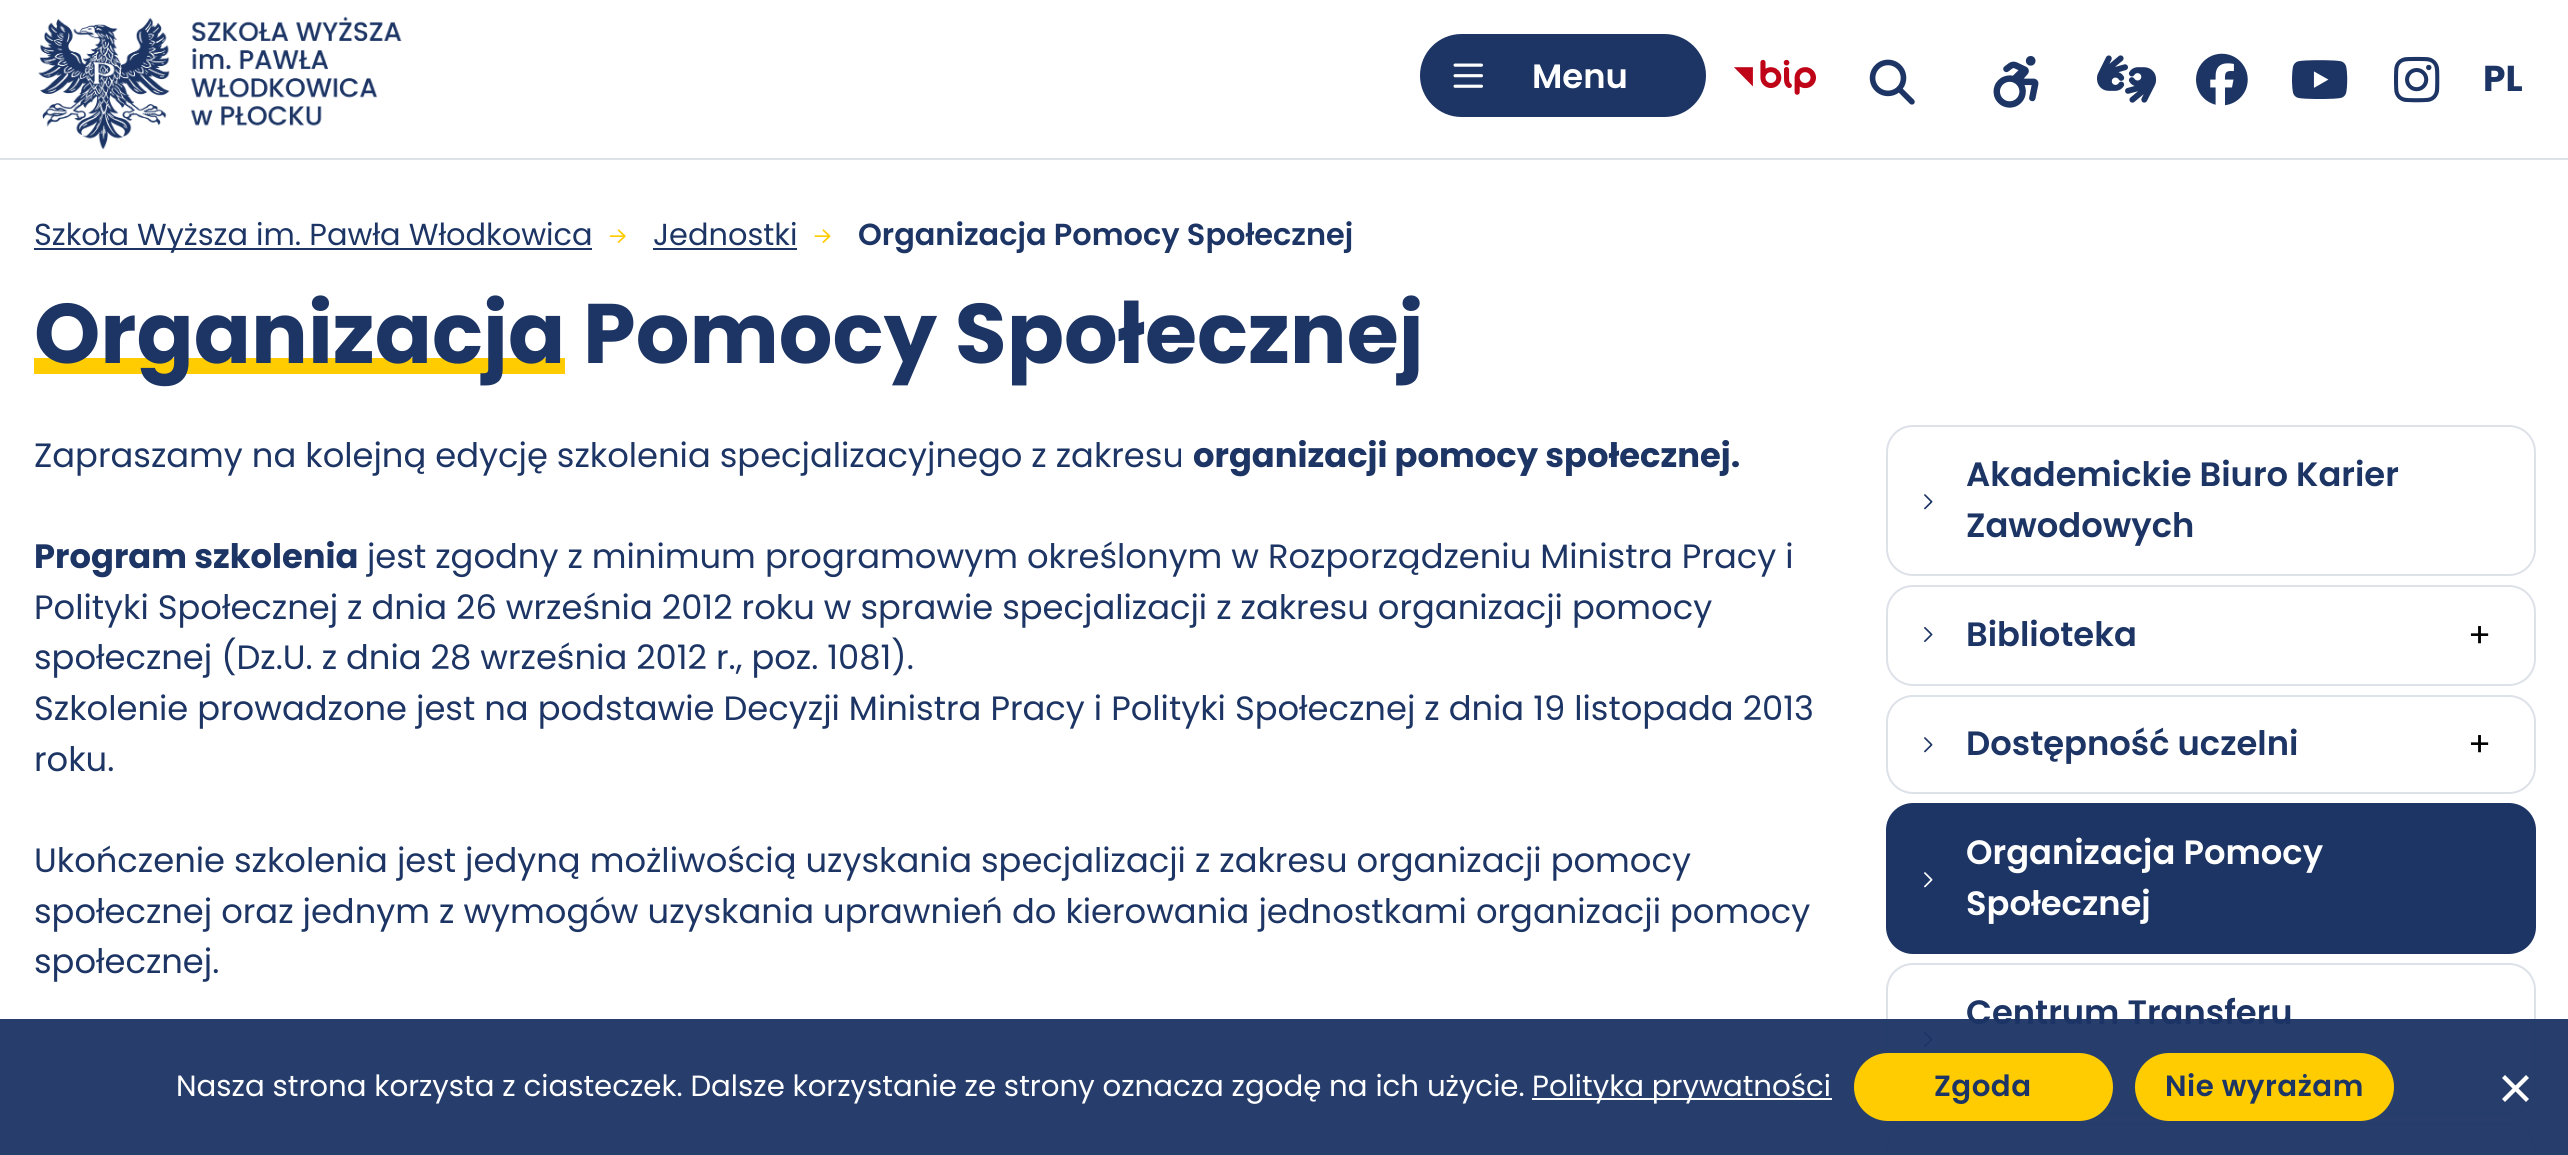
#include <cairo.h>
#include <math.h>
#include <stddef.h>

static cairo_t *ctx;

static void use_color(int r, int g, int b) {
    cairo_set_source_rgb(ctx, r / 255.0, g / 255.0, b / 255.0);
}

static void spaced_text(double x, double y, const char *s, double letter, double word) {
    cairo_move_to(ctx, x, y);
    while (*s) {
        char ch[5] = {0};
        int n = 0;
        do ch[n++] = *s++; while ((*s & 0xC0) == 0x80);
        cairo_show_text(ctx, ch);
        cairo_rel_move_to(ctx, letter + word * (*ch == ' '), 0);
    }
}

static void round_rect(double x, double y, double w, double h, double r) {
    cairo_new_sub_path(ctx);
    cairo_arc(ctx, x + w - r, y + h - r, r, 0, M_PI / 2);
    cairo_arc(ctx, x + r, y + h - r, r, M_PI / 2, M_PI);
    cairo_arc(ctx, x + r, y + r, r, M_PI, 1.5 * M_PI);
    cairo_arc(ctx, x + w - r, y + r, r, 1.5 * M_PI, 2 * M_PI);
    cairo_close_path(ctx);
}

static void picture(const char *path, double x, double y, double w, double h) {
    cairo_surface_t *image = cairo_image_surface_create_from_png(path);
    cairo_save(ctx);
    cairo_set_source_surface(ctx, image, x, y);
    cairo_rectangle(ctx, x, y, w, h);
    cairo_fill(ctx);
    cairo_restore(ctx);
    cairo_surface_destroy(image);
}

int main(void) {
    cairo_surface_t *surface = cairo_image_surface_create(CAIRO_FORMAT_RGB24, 2568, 1155);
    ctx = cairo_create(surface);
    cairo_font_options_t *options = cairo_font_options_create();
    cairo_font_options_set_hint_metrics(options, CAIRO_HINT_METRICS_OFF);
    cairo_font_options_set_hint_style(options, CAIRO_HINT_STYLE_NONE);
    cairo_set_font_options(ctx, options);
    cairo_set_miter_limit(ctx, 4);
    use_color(255, 255, 255);
    cairo_paint(ctx);
    use_color(221, 225, 232);
    cairo_rectangle(ctx, 0, 158, 2568, 2);
    cairo_fill(ctx);
    picture("img1.png", 38, 16, 364, 134);
    use_color(29, 53, 101);
    round_rect(1420, 34, 286, 83, 41.5);
    cairo_fill(ctx);
    picture("img2.png", 1453, 63, 30, 25);
    cairo_select_font_face(ctx, "Poppins SemiBold", CAIRO_FONT_SLANT_NORMAL, CAIRO_FONT_WEIGHT_NORMAL);
    cairo_set_font_size(ctx, 33.75);
    use_color(255, 255, 255);
    cairo_move_to(ctx, 1532, 88);
    cairo_show_text(ctx, "Menu");
    picture("img3.png", 1734, 59, 82, 36);
    picture("img4.png", 1869, 59, 46, 46);
    picture("img5.png", 1993, 56, 46, 52);
    picture("img6.png", 2097, 55, 60, 48);
    picture("img7.png", 2196, 53, 52, 53);
    picture("img8.png", 2292, 60, 56, 39);
    picture("img9.png", 2394, 56, 46, 47);
    cairo_select_font_face(ctx, "Poppins", CAIRO_FONT_SLANT_NORMAL, CAIRO_FONT_WEIGHT_BOLD);
    cairo_set_font_size(ctx, 36);
    use_color(29, 53, 101);
    cairo_move_to(ctx, 2483, 91);
    cairo_show_text(ctx, "PL");
    cairo_rectangle(ctx, 34, 248, 558, 2);
    cairo_fill(ctx);
    cairo_select_font_face(ctx, "Poppins", CAIRO_FONT_SLANT_NORMAL, CAIRO_FONT_WEIGHT_NORMAL);
    cairo_set_font_size(ctx, 30.4);
    cairo_move_to(ctx, 34, 245);
    cairo_show_text(ctx, "Szkoła Wyższa im. Pawła Włodkowica");
    picture("img10.png", 609, 229, 17, 14);
    cairo_move_to(ctx, 653, 245);
    cairo_show_text(ctx, "Jednostki");
    cairo_rectangle(ctx, 653, 248, 144, 2);
    cairo_fill(ctx);
    picture("img11.png", 814, 229, 17, 14);
    cairo_select_font_face(ctx, "Poppins SemiBold", CAIRO_FONT_SLANT_NORMAL, CAIRO_FONT_WEIGHT_NORMAL);
    cairo_move_to(ctx, 858, 245);
    cairo_show_text(ctx, "Organizacja Pomocy Społecznej");
    use_color(255, 204, 1);
    cairo_rectangle(ctx, 34, 358, 531, 16);
    cairo_fill(ctx);
    cairo_select_font_face(ctx, "Poppins", CAIRO_FONT_SLANT_NORMAL, CAIRO_FONT_WEIGHT_BOLD);
    cairo_set_font_size(ctx, 84.4);
    use_color(29, 53, 101);
    cairo_move_to(ctx, 34, 363);
    cairo_show_text(ctx, "Organizacja");
    cairo_move_to(ctx, 583, 363);
    cairo_show_text(ctx, "Pomocy Społecznej");
    cairo_select_font_face(ctx, "Poppins", CAIRO_FONT_SLANT_NORMAL, CAIRO_FONT_WEIGHT_NORMAL);
    cairo_set_font_size(ctx, 33.75);
    cairo_move_to(ctx, 34, 467);
    cairo_show_text(ctx, "Zapraszamy na kolejną edycję szkolenia specjalizacyjnego z zakresu");
    cairo_select_font_face(ctx, "Poppins", CAIRO_FONT_SLANT_NORMAL, CAIRO_FONT_WEIGHT_BOLD);
    cairo_move_to(ctx, 1193, 467);
    cairo_show_text(ctx, "organizacji pomocy społecznej.");
    cairo_move_to(ctx, 34, 568);
    cairo_show_text(ctx, "Program szkolenia");
    cairo_select_font_face(ctx, "Poppins", CAIRO_FONT_SLANT_NORMAL, CAIRO_FONT_WEIGHT_NORMAL);
    cairo_move_to(ctx, 367, 568);
    cairo_show_text(ctx, "jest zgodny z minimum programowym określonym w Rozporządzeniu Ministra Pracy i");
    cairo_move_to(ctx, 34, 619);
    cairo_show_text(ctx, "Polityki Społecznej z dnia 26 września 2012 roku w sprawie specjalizacji z zakresu organizacji pomocy");
    cairo_move_to(ctx, 34, 669);
    cairo_show_text(ctx, "społecznej (Dz.U. z dnia 28 września 2012 r., poz. 1081).");
    cairo_move_to(ctx, 34, 720);
    cairo_show_text(ctx, "Szkolenie prowadzone jest na podstawie Decyzji Ministra Pracy i Polityki Społecznej z dnia 19 listopada 2013");
    cairo_move_to(ctx, 34, 771);
    cairo_show_text(ctx, "roku.");
    cairo_move_to(ctx, 34, 872);
    cairo_show_text(ctx, "Ukończenie szkolenia jest jedyną możliwością uzyskania specjalizacji z zakresu organizacji pomocy");
    cairo_move_to(ctx, 34, 923);
    cairo_show_text(ctx, "społecznej oraz jednym z wymogów uzyskania uprawnień do kierowania jednostkami organizacji pomocy");
    cairo_move_to(ctx, 34, 973);
    cairo_show_text(ctx, "społecznej.");
    round_rect(1887, 426, 648, 149, 26);
    use_color(221, 225, 232);
    cairo_stroke(ctx);
    cairo_select_font_face(ctx, "Poppins SemiBold", CAIRO_FONT_SLANT_NORMAL, CAIRO_FONT_WEIGHT_NORMAL);
    use_color(29, 53, 101);
    cairo_move_to(ctx, 1966, 486);
    cairo_show_text(ctx, "Akademickie Biuro Karier");
    picture("img12.png", 1924, 494, 9, 16);
    cairo_move_to(ctx, 1966, 537);
    cairo_show_text(ctx, "Zawodowych");
    round_rect(1887, 586, 648, 99, 26);
    use_color(221, 225, 232);
    cairo_stroke(ctx);
    picture("img13.png", 1924, 627, 9, 15);
    use_color(29, 53, 101);
    cairo_move_to(ctx, 1966, 646);
    cairo_show_text(ctx, "Biblioteka");
    cairo_select_font_face(ctx, "Poppins", CAIRO_FONT_SLANT_NORMAL, CAIRO_FONT_WEIGHT_NORMAL);
    use_color(0, 0, 0);
    cairo_move_to(ctx, 2468, 647);
    cairo_show_text(ctx, "+");
    round_rect(1887, 696, 648, 97, 26);
    use_color(221, 225, 232);
    cairo_stroke(ctx);
    picture("img12.png", 1924, 737, 9, 16);
    cairo_select_font_face(ctx, "Poppins SemiBold", CAIRO_FONT_SLANT_NORMAL, CAIRO_FONT_WEIGHT_NORMAL);
    use_color(29, 53, 101);
    cairo_move_to(ctx, 1966, 755);
    cairo_show_text(ctx, "Dostępność uczelni");
    cairo_select_font_face(ctx, "Poppins", CAIRO_FONT_SLANT_NORMAL, CAIRO_FONT_WEIGHT_NORMAL);
    use_color(0, 0, 0);
    cairo_move_to(ctx, 2468, 756);
    cairo_show_text(ctx, "+");
    use_color(29, 53, 101);
    round_rect(1887, 804, 648, 149, 26);
    cairo_fill_preserve(ctx);
    cairo_stroke(ctx);
    cairo_select_font_face(ctx, "Poppins SemiBold", CAIRO_FONT_SLANT_NORMAL, CAIRO_FONT_WEIGHT_NORMAL);
    use_color(255, 255, 255);
    cairo_move_to(ctx, 1966, 864);
    cairo_show_text(ctx, "Organizacja Pomocy");
    picture("img14.png", 1924, 872, 9, 16);
    cairo_move_to(ctx, 1966, 915);
    cairo_show_text(ctx, "Społecznej");
    round_rect(1887, 964, 648, 149, 26);
    use_color(221, 225, 232);
    cairo_stroke(ctx);
    use_color(29, 53, 101);
    cairo_move_to(ctx, 1966, 1024);
    cairo_show_text(ctx, "Centrum Transferu");
    picture("img13.png", 1924, 1032, 9, 15);
    round_rect(1887, 1124, 648, 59, 26);
    use_color(221, 225, 232);
    cairo_stroke(ctx);
    cairo_set_source_rgba(ctx, 0.114, 0.208, 0.396, 0.95);
    cairo_rectangle(ctx, 0, 1019, 2568, 136);
    cairo_fill(ctx);
    cairo_select_font_face(ctx, "Poppins", CAIRO_FONT_SLANT_NORMAL, CAIRO_FONT_WEIGHT_NORMAL);
    cairo_set_font_size(ctx, 29.25);
    use_color(255, 255, 255);
    cairo_move_to(ctx, 176, 1096);
    cairo_show_text(ctx, "Nasza strona korzysta z ciasteczek. Dalsze korzystanie ze strony oznacza zgodę na ich użycie.");
    cairo_rectangle(ctx, 1532, 1098, 300, 2);
    cairo_fill(ctx);
    cairo_move_to(ctx, 1532, 1096);
    cairo_show_text(ctx, "Polityka prywatności");
    use_color(255, 204, 1);
    round_rect(1854, 1053, 259, 68, 34);
    cairo_fill(ctx);
    cairo_select_font_face(ctx, "Poppins SemiBold", CAIRO_FONT_SLANT_NORMAL, CAIRO_FONT_WEIGHT_NORMAL);
    use_color(29, 53, 101);
    spaced_text(1934, 1096, "Zgoda", 0.5, 0);
    use_color(255, 204, 1);
    round_rect(2135, 1053, 259, 68, 34);
    cairo_fill(ctx);
    use_color(29, 53, 101);
    spaced_text(2165, 1096, "Nie wyrażam", 0.5, 0);
    use_color(255, 255, 255);
    cairo_new_path(ctx);
    cairo_move_to(ctx, 2526, 1075);
    cairo_line_to(ctx, 2529, 1078);
    cairo_line_to(ctx, 2505, 1102);
    cairo_line_to(ctx, 2502, 1099);
    cairo_close_path(ctx);
    cairo_fill(ctx);
    cairo_new_path(ctx);
    cairo_move_to(ctx, 2502, 1078);
    cairo_line_to(ctx, 2505, 1075);
    cairo_line_to(ctx, 2529, 1099);
    cairo_line_to(ctx, 2526, 1102);
    cairo_close_path(ctx);
    cairo_fill(ctx);
    cairo_surface_write_to_png(surface, "result.png");
    cairo_font_options_destroy(options);
    cairo_destroy(ctx);
    cairo_surface_destroy(surface);
    return 0;
}
